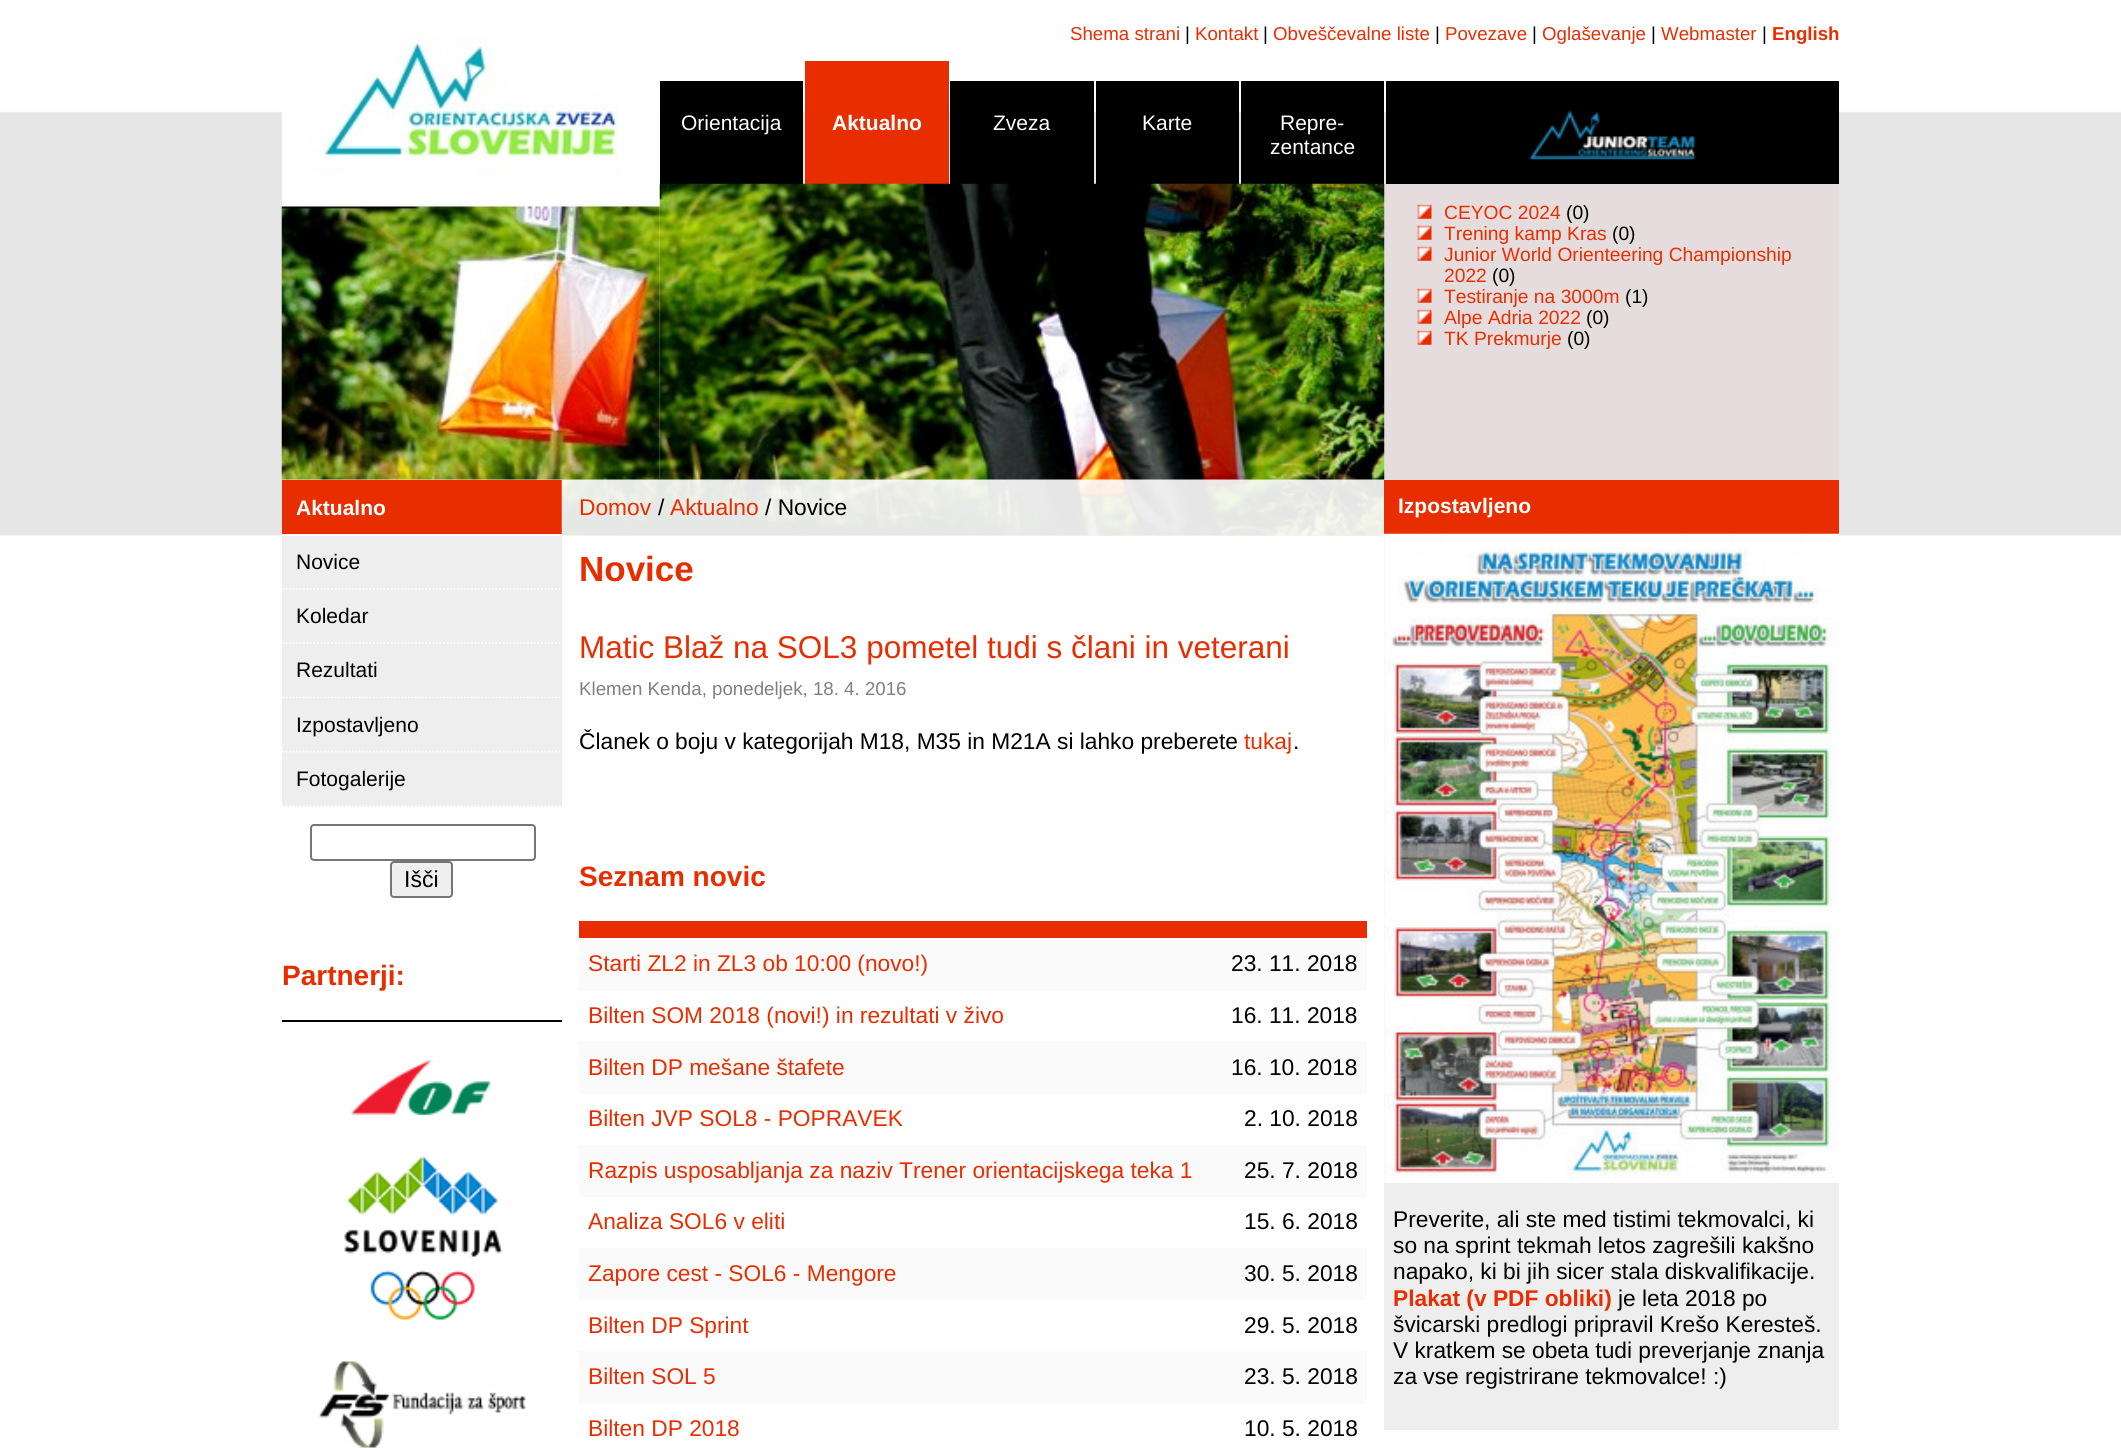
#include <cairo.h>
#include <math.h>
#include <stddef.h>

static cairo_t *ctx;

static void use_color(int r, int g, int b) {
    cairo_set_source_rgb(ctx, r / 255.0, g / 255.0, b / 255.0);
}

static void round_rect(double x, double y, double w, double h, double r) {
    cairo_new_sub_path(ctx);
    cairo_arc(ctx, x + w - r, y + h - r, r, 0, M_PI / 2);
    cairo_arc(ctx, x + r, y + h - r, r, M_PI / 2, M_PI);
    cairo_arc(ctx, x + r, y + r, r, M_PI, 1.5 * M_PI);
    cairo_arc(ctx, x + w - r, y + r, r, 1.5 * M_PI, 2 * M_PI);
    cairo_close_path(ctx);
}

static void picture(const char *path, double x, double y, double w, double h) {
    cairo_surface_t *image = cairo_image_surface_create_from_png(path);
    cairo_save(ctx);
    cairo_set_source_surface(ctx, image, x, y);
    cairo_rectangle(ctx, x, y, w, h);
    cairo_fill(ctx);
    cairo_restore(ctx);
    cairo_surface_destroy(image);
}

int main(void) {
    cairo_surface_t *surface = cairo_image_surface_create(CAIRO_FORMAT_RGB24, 2121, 1448);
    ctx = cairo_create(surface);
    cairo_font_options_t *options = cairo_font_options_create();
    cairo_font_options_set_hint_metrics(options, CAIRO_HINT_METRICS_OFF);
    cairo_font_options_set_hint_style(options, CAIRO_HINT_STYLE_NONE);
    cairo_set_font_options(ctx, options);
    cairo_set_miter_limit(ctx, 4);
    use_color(255, 255, 255);
    cairo_paint(ctx);
    picture("img1.png", 0, 111, 2121, 425);
    use_color(229, 221, 221);
    cairo_rectangle(ctx, 1384, 184, 455, 296);
    cairo_fill(ctx);
    use_color(232, 46, 0);
    cairo_rectangle(ctx, 282, 480, 280, 54);
    cairo_fill(ctx);
    use_color(255, 255, 255);
    cairo_rectangle(ctx, 282, 534, 308, 2);
    cairo_fill(ctx);
    picture("img9.png", 561, 479, 824, 57);
    picture("img2.png", 281, 35, 379, 445);
    cairo_select_font_face(ctx, "Liberation Sans", CAIRO_FONT_SLANT_NORMAL, CAIRO_FONT_WEIGHT_NORMAL);
    cairo_set_font_size(ctx, 18.7);
    use_color(232, 46, 0);
    cairo_move_to(ctx, 1070, 40);
    cairo_show_text(ctx, "Shema strani");
    use_color(0, 0, 0);
    cairo_move_to(ctx, 1185, 40);
    cairo_show_text(ctx, "|");
    use_color(232, 46, 0);
    cairo_move_to(ctx, 1195, 40);
    cairo_show_text(ctx, "Kontakt");
    use_color(0, 0, 0);
    cairo_move_to(ctx, 1263, 40);
    cairo_show_text(ctx, "|");
    use_color(232, 46, 0);
    cairo_move_to(ctx, 1273, 40);
    cairo_show_text(ctx, "Obveščevalne liste");
    use_color(0, 0, 0);
    cairo_move_to(ctx, 1435, 40);
    cairo_show_text(ctx, "|");
    use_color(232, 46, 0);
    cairo_move_to(ctx, 1445, 40);
    cairo_show_text(ctx, "Povezave");
    use_color(0, 0, 0);
    cairo_move_to(ctx, 1532, 40);
    cairo_show_text(ctx, "|");
    use_color(232, 46, 0);
    cairo_move_to(ctx, 1542, 40);
    cairo_show_text(ctx, "Oglaševanje");
    use_color(0, 0, 0);
    cairo_move_to(ctx, 1651, 40);
    cairo_show_text(ctx, "|");
    use_color(232, 46, 0);
    cairo_move_to(ctx, 1661, 40);
    cairo_show_text(ctx, "Webmaster");
    use_color(0, 0, 0);
    cairo_move_to(ctx, 1762, 40);
    cairo_show_text(ctx, "|");
    cairo_select_font_face(ctx, "Liberation Sans", CAIRO_FONT_SLANT_NORMAL, CAIRO_FONT_WEIGHT_BOLD);
    use_color(232, 46, 0);
    cairo_move_to(ctx, 1772, 40);
    cairo_show_text(ctx, "English");
    use_color(0, 0, 0);
    cairo_rectangle(ctx, 660, 81, 143, 103);
    cairo_fill(ctx);
    cairo_select_font_face(ctx, "Liberation Sans", CAIRO_FONT_SLANT_NORMAL, CAIRO_FONT_WEIGHT_NORMAL);
    cairo_set_font_size(ctx, 21);
    use_color(255, 255, 255);
    cairo_move_to(ctx, 681, 130);
    cairo_show_text(ctx, "Orientacija");
    use_color(232, 46, 0);
    cairo_rectangle(ctx, 805, 61, 144, 123);
    cairo_fill(ctx);
    cairo_select_font_face(ctx, "Liberation Sans", CAIRO_FONT_SLANT_NORMAL, CAIRO_FONT_WEIGHT_BOLD);
    use_color(255, 255, 255);
    cairo_move_to(ctx, 832, 130);
    cairo_show_text(ctx, "Aktualno");
    use_color(0, 0, 0);
    cairo_rectangle(ctx, 950, 81, 144, 103);
    cairo_fill(ctx);
    cairo_select_font_face(ctx, "Liberation Sans", CAIRO_FONT_SLANT_NORMAL, CAIRO_FONT_WEIGHT_NORMAL);
    use_color(255, 255, 255);
    cairo_move_to(ctx, 993, 130);
    cairo_show_text(ctx, "Zveza");
    use_color(0, 0, 0);
    cairo_rectangle(ctx, 1096, 81, 143, 103);
    cairo_fill(ctx);
    use_color(255, 255, 255);
    cairo_move_to(ctx, 1142, 130);
    cairo_show_text(ctx, "Karte");
    use_color(0, 0, 0);
    cairo_rectangle(ctx, 1241, 81, 143, 103);
    cairo_fill(ctx);
    use_color(255, 255, 255);
    cairo_move_to(ctx, 1280, 130);
    cairo_show_text(ctx, "Repre-");
    cairo_move_to(ctx, 1270, 154);
    cairo_show_text(ctx, "zentance");
    use_color(0, 0, 0);
    cairo_rectangle(ctx, 1386, 81, 453, 103);
    cairo_fill(ctx);
    picture("img3.png", 1529, 110, 167, 50);
    picture("img4.png", 659, 183, 726, 297);
    picture("img5.png", 1417, 204, 15, 15);
    cairo_set_font_size(ctx, 19.25);
    use_color(232, 46, 0);
    cairo_move_to(ctx, 1444, 219);
    cairo_show_text(ctx, "CEYOC 2024");
    use_color(0, 0, 0);
    cairo_move_to(ctx, 1566, 219);
    cairo_show_text(ctx, "(0)");
    picture("img5.png", 1417, 225, 15, 15);
    use_color(232, 46, 0);
    cairo_move_to(ctx, 1444, 240);
    cairo_show_text(ctx, "Trening kamp Kras");
    use_color(0, 0, 0);
    cairo_move_to(ctx, 1612, 240);
    cairo_show_text(ctx, "(0)");
    picture("img5.png", 1417, 246, 15, 15);
    use_color(232, 46, 0);
    cairo_move_to(ctx, 1444, 261);
    cairo_show_text(ctx, "Junior World Orienteering Championship");
    cairo_move_to(ctx, 1444, 282);
    cairo_show_text(ctx, "2022");
    use_color(0, 0, 0);
    cairo_move_to(ctx, 1492, 282);
    cairo_show_text(ctx, "(0)");
    picture("img5.png", 1417, 288, 15, 15);
    use_color(232, 46, 0);
    cairo_move_to(ctx, 1444, 303);
    cairo_show_text(ctx, "Testiranje na 3000m");
    use_color(0, 0, 0);
    cairo_move_to(ctx, 1625, 303);
    cairo_show_text(ctx, "(1)");
    picture("img5.png", 1417, 309, 15, 15);
    use_color(232, 46, 0);
    cairo_move_to(ctx, 1444, 324);
    cairo_show_text(ctx, "Alpe Adria 2022");
    use_color(0, 0, 0);
    cairo_move_to(ctx, 1586, 324);
    cairo_show_text(ctx, "(0)");
    picture("img5.png", 1417, 330, 15, 15);
    use_color(232, 46, 0);
    cairo_move_to(ctx, 1444, 345);
    cairo_show_text(ctx, "TK Prekmurje");
    use_color(0, 0, 0);
    cairo_move_to(ctx, 1567, 345);
    cairo_show_text(ctx, "(0)");
    cairo_select_font_face(ctx, "Liberation Sans", CAIRO_FONT_SLANT_NORMAL, CAIRO_FONT_WEIGHT_BOLD);
    cairo_set_font_size(ctx, 21);
    use_color(255, 255, 255);
    cairo_move_to(ctx, 296, 515);
    cairo_show_text(ctx, "Aktualno");
    use_color(238, 238, 238);
    cairo_rectangle(ctx, 282, 536, 280, 162);
    cairo_fill(ctx);
    cairo_new_path(ctx);
    cairo_move_to(ctx, 282, 589);
    cairo_line_to(ctx, 562, 589);
    use_color(255, 255, 255);
    cairo_set_line_width(ctx, 1.8);
    cairo_set_dash(ctx, (double[]){1.75, 1.75}, 2, 0);
    cairo_stroke(ctx);
    cairo_select_font_face(ctx, "Liberation Sans", CAIRO_FONT_SLANT_NORMAL, CAIRO_FONT_WEIGHT_NORMAL);
    use_color(0, 0, 0);
    cairo_move_to(ctx, 296, 569);
    cairo_show_text(ctx, "Novice");
    cairo_new_path(ctx);
    cairo_move_to(ctx, 282, 643);
    cairo_line_to(ctx, 562, 643);
    use_color(255, 255, 255);
    cairo_stroke(ctx);
    use_color(0, 0, 0);
    cairo_move_to(ctx, 296, 623);
    cairo_show_text(ctx, "Koledar");
    cairo_new_path(ctx);
    cairo_move_to(ctx, 282, 697.5);
    cairo_line_to(ctx, 562, 697.5);
    use_color(255, 255, 255);
    cairo_stroke(ctx);
    use_color(0, 0, 0);
    cairo_move_to(ctx, 296, 677);
    cairo_show_text(ctx, "Rezultati");
    use_color(238, 238, 238);
    cairo_rectangle(ctx, 282, 698, 280, 109);
    cairo_fill(ctx);
    cairo_new_path(ctx);
    cairo_move_to(ctx, 282, 751.5);
    cairo_line_to(ctx, 562, 751.5);
    use_color(255, 255, 255);
    cairo_stroke(ctx);
    use_color(0, 0, 0);
    cairo_move_to(ctx, 296, 732);
    cairo_show_text(ctx, "Izpostavljeno");
    cairo_new_path(ctx);
    cairo_move_to(ctx, 282, 806);
    cairo_line_to(ctx, 562, 806);
    use_color(255, 255, 255);
    cairo_stroke(ctx);
    use_color(0, 0, 0);
    cairo_move_to(ctx, 296, 786);
    cairo_show_text(ctx, "Fotogalerije");
    round_rect(311, 825, 224, 35, 3);
    use_color(118, 118, 118);
    cairo_set_line_width(ctx, 2);
    cairo_set_dash(ctx, NULL, 0, 0);
    cairo_stroke(ctx);
    use_color(239, 239, 239);
    round_rect(391, 862, 61, 35, 3);
    cairo_fill_preserve(ctx);
    use_color(118, 118, 118);
    cairo_stroke(ctx);
    cairo_set_font_size(ctx, 23);
    use_color(0, 0, 0);
    cairo_move_to(ctx, 404, 887);
    cairo_show_text(ctx, "Išči");
    cairo_select_font_face(ctx, "Liberation Sans", CAIRO_FONT_SLANT_NORMAL, CAIRO_FONT_WEIGHT_BOLD);
    cairo_set_font_size(ctx, 28);
    use_color(232, 46, 0);
    cairo_move_to(ctx, 282, 985);
    cairo_show_text(ctx, "Partnerji:");
    use_color(0, 0, 0);
    cairo_rectangle(ctx, 282, 1020, 280, 2);
    cairo_fill(ctx);
    picture("img6.png", 351, 1060, 140, 56);
    picture("img7.png", 344, 1156, 159, 164);
    picture("img8.png", 318, 1361, 208, 87);
    cairo_select_font_face(ctx, "Liberation Sans", CAIRO_FONT_SLANT_NORMAL, CAIRO_FONT_WEIGHT_NORMAL);
    cairo_set_font_size(ctx, 22.75);
    use_color(232, 46, 0);
    cairo_move_to(ctx, 579, 515);
    cairo_show_text(ctx, "Domov");
    use_color(0, 0, 0);
    cairo_move_to(ctx, 658, 515);
    cairo_show_text(ctx, "/");
    use_color(232, 46, 0);
    cairo_move_to(ctx, 670, 515);
    cairo_show_text(ctx, "Aktualno");
    use_color(0, 0, 0);
    cairo_move_to(ctx, 765, 515);
    cairo_show_text(ctx, "/ Novice");
    cairo_select_font_face(ctx, "Liberation Sans", CAIRO_FONT_SLANT_NORMAL, CAIRO_FONT_WEIGHT_BOLD);
    cairo_set_font_size(ctx, 35);
    use_color(232, 46, 0);
    cairo_move_to(ctx, 579, 581);
    cairo_show_text(ctx, "Novice");
    cairo_select_font_face(ctx, "Liberation Sans", CAIRO_FONT_SLANT_NORMAL, CAIRO_FONT_WEIGHT_NORMAL);
    cairo_set_font_size(ctx, 31.5);
    cairo_move_to(ctx, 579, 658);
    cairo_show_text(ctx, "Matic Blaž na SOL3 pometel tudi s člani in veterani");
    cairo_set_font_size(ctx, 18.7);
    use_color(128, 128, 128);
    cairo_move_to(ctx, 579, 695);
    cairo_show_text(ctx, "Klemen Kenda, ponedeljek, 18. 4. 2016");
    cairo_set_font_size(ctx, 22.75);
    use_color(0, 0, 0);
    cairo_move_to(ctx, 579, 749);
    cairo_show_text(ctx, "Članek o boju v kategorijah M18, M35 in M21A si lahko preberete");
    use_color(232, 46, 0);
    cairo_move_to(ctx, 1244, 749);
    cairo_show_text(ctx, "tukaj");
    use_color(0, 0, 0);
    cairo_move_to(ctx, 1293, 749);
    cairo_show_text(ctx, ".");
    cairo_select_font_face(ctx, "Liberation Sans", CAIRO_FONT_SLANT_NORMAL, CAIRO_FONT_WEIGHT_BOLD);
    cairo_set_font_size(ctx, 28);
    use_color(232, 46, 0);
    cairo_move_to(ctx, 579, 886);
    cairo_show_text(ctx, "Seznam novic");
    cairo_rectangle(ctx, 579, 921, 788, 17);
    cairo_fill(ctx);
    use_color(250, 250, 250);
    cairo_rectangle(ctx, 579, 938, 788, 53);
    cairo_fill(ctx);
    cairo_select_font_face(ctx, "Liberation Sans", CAIRO_FONT_SLANT_NORMAL, CAIRO_FONT_WEIGHT_NORMAL);
    cairo_set_font_size(ctx, 22.75);
    use_color(232, 46, 0);
    cairo_move_to(ctx, 588, 971);
    cairo_show_text(ctx, "Starti ZL2 in ZL3 ob 10:00 (novo!)");
    use_color(0, 0, 0);
    cairo_move_to(ctx, 1231, 971);
    cairo_show_text(ctx, "23. 11. 2018");
    use_color(232, 46, 0);
    cairo_move_to(ctx, 588, 1023);
    cairo_show_text(ctx, "Bilten SOM 2018 (novi!) in rezultati v živo");
    use_color(0, 0, 0);
    cairo_move_to(ctx, 1231, 1023);
    cairo_show_text(ctx, "16. 11. 2018");
    use_color(250, 250, 250);
    cairo_rectangle(ctx, 579, 1041, 788, 53);
    cairo_fill(ctx);
    use_color(232, 46, 0);
    cairo_move_to(ctx, 588, 1075);
    cairo_show_text(ctx, "Bilten DP mešane štafete");
    use_color(0, 0, 0);
    cairo_move_to(ctx, 1231, 1075);
    cairo_show_text(ctx, "16. 10. 2018");
    use_color(232, 46, 0);
    cairo_move_to(ctx, 588, 1126);
    cairo_show_text(ctx, "Bilten JVP SOL8 - POPRAVEK");
    use_color(0, 0, 0);
    cairo_move_to(ctx, 1244, 1126);
    cairo_show_text(ctx, "2. 10. 2018");
    use_color(250, 250, 250);
    cairo_rectangle(ctx, 579, 1145, 788, 52);
    cairo_fill(ctx);
    use_color(232, 46, 0);
    cairo_move_to(ctx, 588, 1178);
    cairo_show_text(ctx, "Razpis usposabljanja za naziv Trener orientacijskega teka 1");
    use_color(0, 0, 0);
    cairo_move_to(ctx, 1244, 1178);
    cairo_show_text(ctx, "25. 7. 2018");
    use_color(232, 46, 0);
    cairo_move_to(ctx, 588, 1229);
    cairo_show_text(ctx, "Analiza SOL6 v eliti");
    use_color(0, 0, 0);
    cairo_move_to(ctx, 1244, 1229);
    cairo_show_text(ctx, "15. 6. 2018");
    use_color(250, 250, 250);
    cairo_rectangle(ctx, 579, 1248, 788, 52);
    cairo_fill(ctx);
    use_color(232, 46, 0);
    cairo_move_to(ctx, 588, 1281);
    cairo_show_text(ctx, "Zapore cest - SOL6 - Mengore");
    use_color(0, 0, 0);
    cairo_move_to(ctx, 1244, 1281);
    cairo_show_text(ctx, "30. 5. 2018");
    use_color(232, 46, 0);
    cairo_move_to(ctx, 588, 1333);
    cairo_show_text(ctx, "Bilten DP Sprint");
    use_color(0, 0, 0);
    cairo_move_to(ctx, 1244, 1333);
    cairo_show_text(ctx, "29. 5. 2018");
    use_color(250, 250, 250);
    cairo_rectangle(ctx, 579, 1351, 788, 53);
    cairo_fill(ctx);
    use_color(232, 46, 0);
    cairo_move_to(ctx, 588, 1384);
    cairo_show_text(ctx, "Bilten SOL 5");
    use_color(0, 0, 0);
    cairo_move_to(ctx, 1244, 1384);
    cairo_show_text(ctx, "23. 5. 2018");
    use_color(232, 46, 0);
    cairo_move_to(ctx, 588, 1436);
    cairo_show_text(ctx, "Bilten DP 2018");
    use_color(0, 0, 0);
    cairo_move_to(ctx, 1244, 1436);
    cairo_show_text(ctx, "10. 5. 2018");
    use_color(238, 238, 238);
    cairo_rectangle(ctx, 1384, 534, 455, 896);
    cairo_fill(ctx);
    use_color(232, 46, 0);
    cairo_rectangle(ctx, 1384, 480, 455, 54);
    cairo_fill(ctx);
    cairo_select_font_face(ctx, "Liberation Sans", CAIRO_FONT_SLANT_NORMAL, CAIRO_FONT_WEIGHT_BOLD);
    cairo_set_font_size(ctx, 21);
    use_color(255, 255, 255);
    cairo_move_to(ctx, 1398, 513);
    cairo_show_text(ctx, "Izpostavljeno");
    picture("img10.png", 1384, 533, 456, 650);
    cairo_select_font_face(ctx, "Liberation Sans", CAIRO_FONT_SLANT_NORMAL, CAIRO_FONT_WEIGHT_NORMAL);
    cairo_set_font_size(ctx, 22.75);
    use_color(0, 0, 0);
    cairo_move_to(ctx, 1393, 1227);
    cairo_show_text(ctx, "Preverite, ali ste med tistimi tekmovalci, ki");
    cairo_move_to(ctx, 1393, 1253);
    cairo_show_text(ctx, "so na sprint tekmah letos zagrešili kakšno");
    cairo_move_to(ctx, 1393, 1279);
    cairo_show_text(ctx, "napako, ki bi jih sicer stala diskvalifikacije.");
    cairo_select_font_face(ctx, "Liberation Sans", CAIRO_FONT_SLANT_NORMAL, CAIRO_FONT_WEIGHT_BOLD);
    use_color(232, 46, 0);
    cairo_move_to(ctx, 1393, 1306);
    cairo_show_text(ctx, "Plakat (v PDF obliki)");
    cairo_select_font_face(ctx, "Liberation Sans", CAIRO_FONT_SLANT_NORMAL, CAIRO_FONT_WEIGHT_NORMAL);
    use_color(0, 0, 0);
    cairo_move_to(ctx, 1618, 1306);
    cairo_show_text(ctx, "je leta 2018 po");
    cairo_move_to(ctx, 1393, 1332);
    cairo_show_text(ctx, "švicarski predlogi pripravil Krešo Keresteš.");
    cairo_move_to(ctx, 1393, 1358);
    cairo_show_text(ctx, "V kratkem se obeta tudi preverjanje znanja");
    cairo_move_to(ctx, 1393, 1384);
    cairo_show_text(ctx, "za vse registrirane tekmovalce! :)");
    cairo_surface_write_to_png(surface, "result.png");
    cairo_font_options_destroy(options);
    cairo_destroy(ctx);
    cairo_surface_destroy(surface);
    return 0;
}
